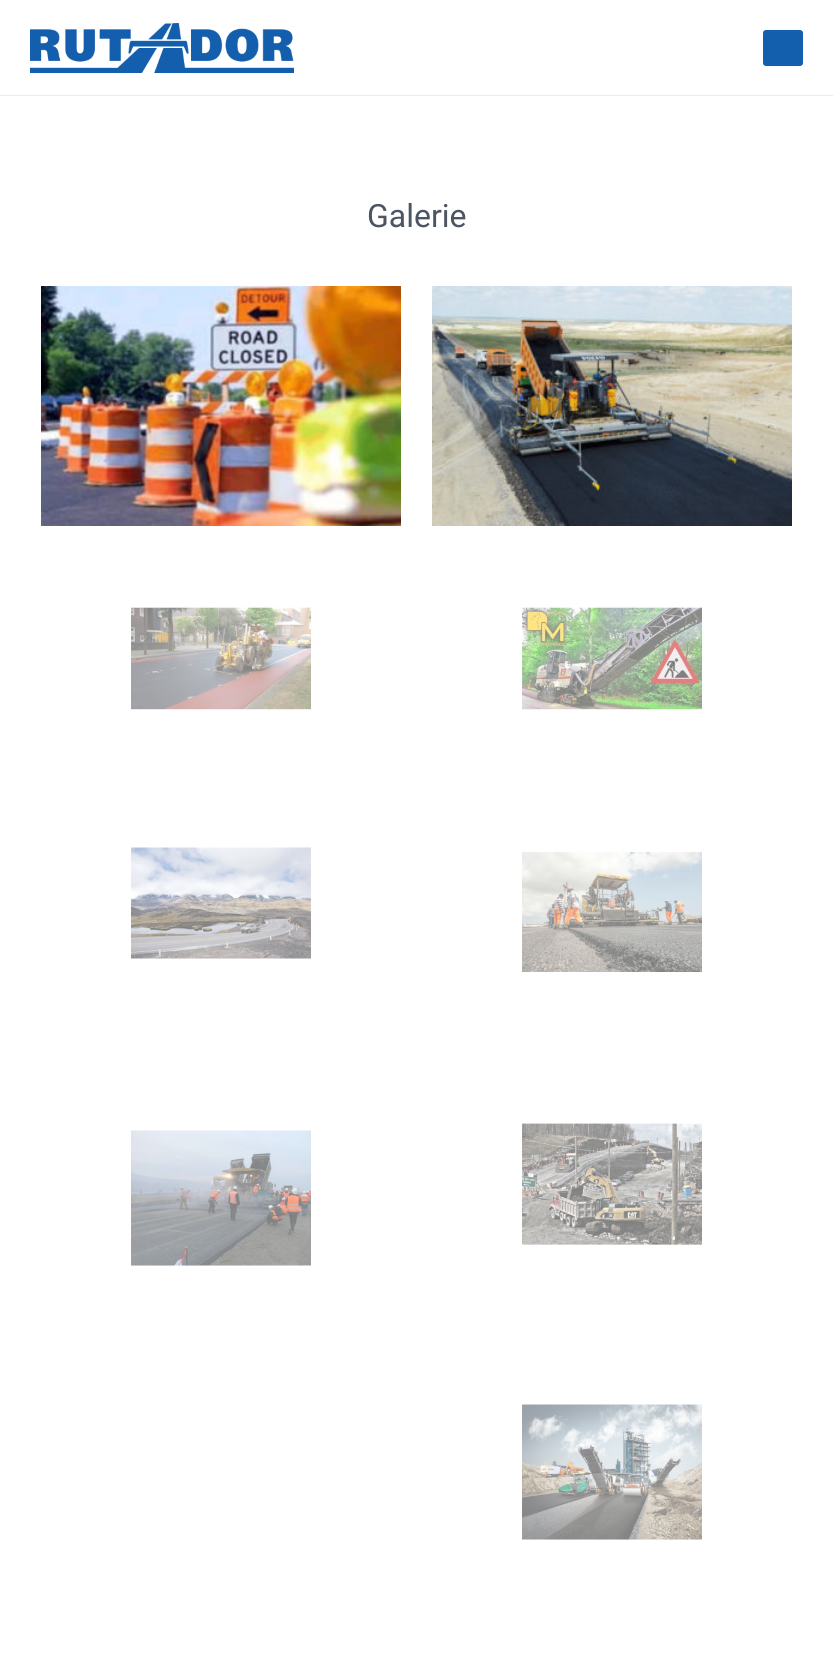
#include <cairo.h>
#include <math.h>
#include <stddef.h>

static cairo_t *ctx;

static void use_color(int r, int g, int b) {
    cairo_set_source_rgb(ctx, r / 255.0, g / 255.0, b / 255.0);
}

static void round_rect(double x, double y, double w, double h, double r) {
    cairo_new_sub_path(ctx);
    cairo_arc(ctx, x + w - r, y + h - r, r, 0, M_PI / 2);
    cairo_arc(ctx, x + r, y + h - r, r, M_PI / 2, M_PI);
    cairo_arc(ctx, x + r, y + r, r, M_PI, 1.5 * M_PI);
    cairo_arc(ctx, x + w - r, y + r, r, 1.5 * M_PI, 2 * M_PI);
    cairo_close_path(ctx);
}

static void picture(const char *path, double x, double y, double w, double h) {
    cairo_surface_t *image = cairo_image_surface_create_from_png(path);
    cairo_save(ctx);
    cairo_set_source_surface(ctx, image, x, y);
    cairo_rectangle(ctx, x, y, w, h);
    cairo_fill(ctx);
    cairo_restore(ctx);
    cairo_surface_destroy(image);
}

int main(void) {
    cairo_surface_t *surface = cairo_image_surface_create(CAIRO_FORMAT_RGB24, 833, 1673);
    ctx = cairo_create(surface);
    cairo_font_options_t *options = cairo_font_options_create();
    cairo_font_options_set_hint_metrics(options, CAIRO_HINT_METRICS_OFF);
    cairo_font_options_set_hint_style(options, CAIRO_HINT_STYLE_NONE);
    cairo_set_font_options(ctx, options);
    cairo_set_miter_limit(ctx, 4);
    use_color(255, 255, 255);
    cairo_paint(ctx);
    use_color(235, 235, 235);
    cairo_rectangle(ctx, 0, 95, 833, 1);
    cairo_fill(ctx);
    picture("img1.png", 30, 23, 264, 50);
    use_color(20, 95, 173);
    round_rect(763, 30, 40, 36, 3);
    cairo_fill(ctx);
    cairo_select_font_face(ctx, "Roboto", CAIRO_FONT_SLANT_NORMAL, CAIRO_FONT_WEIGHT_NORMAL);
    cairo_set_font_size(ctx, 32);
    use_color(76, 85, 98);
    cairo_move_to(ctx, 367, 227);
    cairo_show_text(ctx, "Galerie");
    picture("img2.png", 41, 286, 360, 240);
    picture("img3.png", 432, 286, 360, 240);
    picture("img4.png", 131, 607, 180, 103);
    picture("img5.png", 522, 607, 180, 103);
    picture("img6.png", 131, 847, 180, 112);
    picture("img7.png", 522, 852, 180, 120);
    picture("img8.png", 131, 1130, 180, 136);
    picture("img9.png", 522, 1123, 180, 122);
    picture("img10.png", 522, 1404, 180, 136);
    cairo_surface_write_to_png(surface, "result.png");
    cairo_font_options_destroy(options);
    cairo_destroy(ctx);
    cairo_surface_destroy(surface);
    return 0;
}
